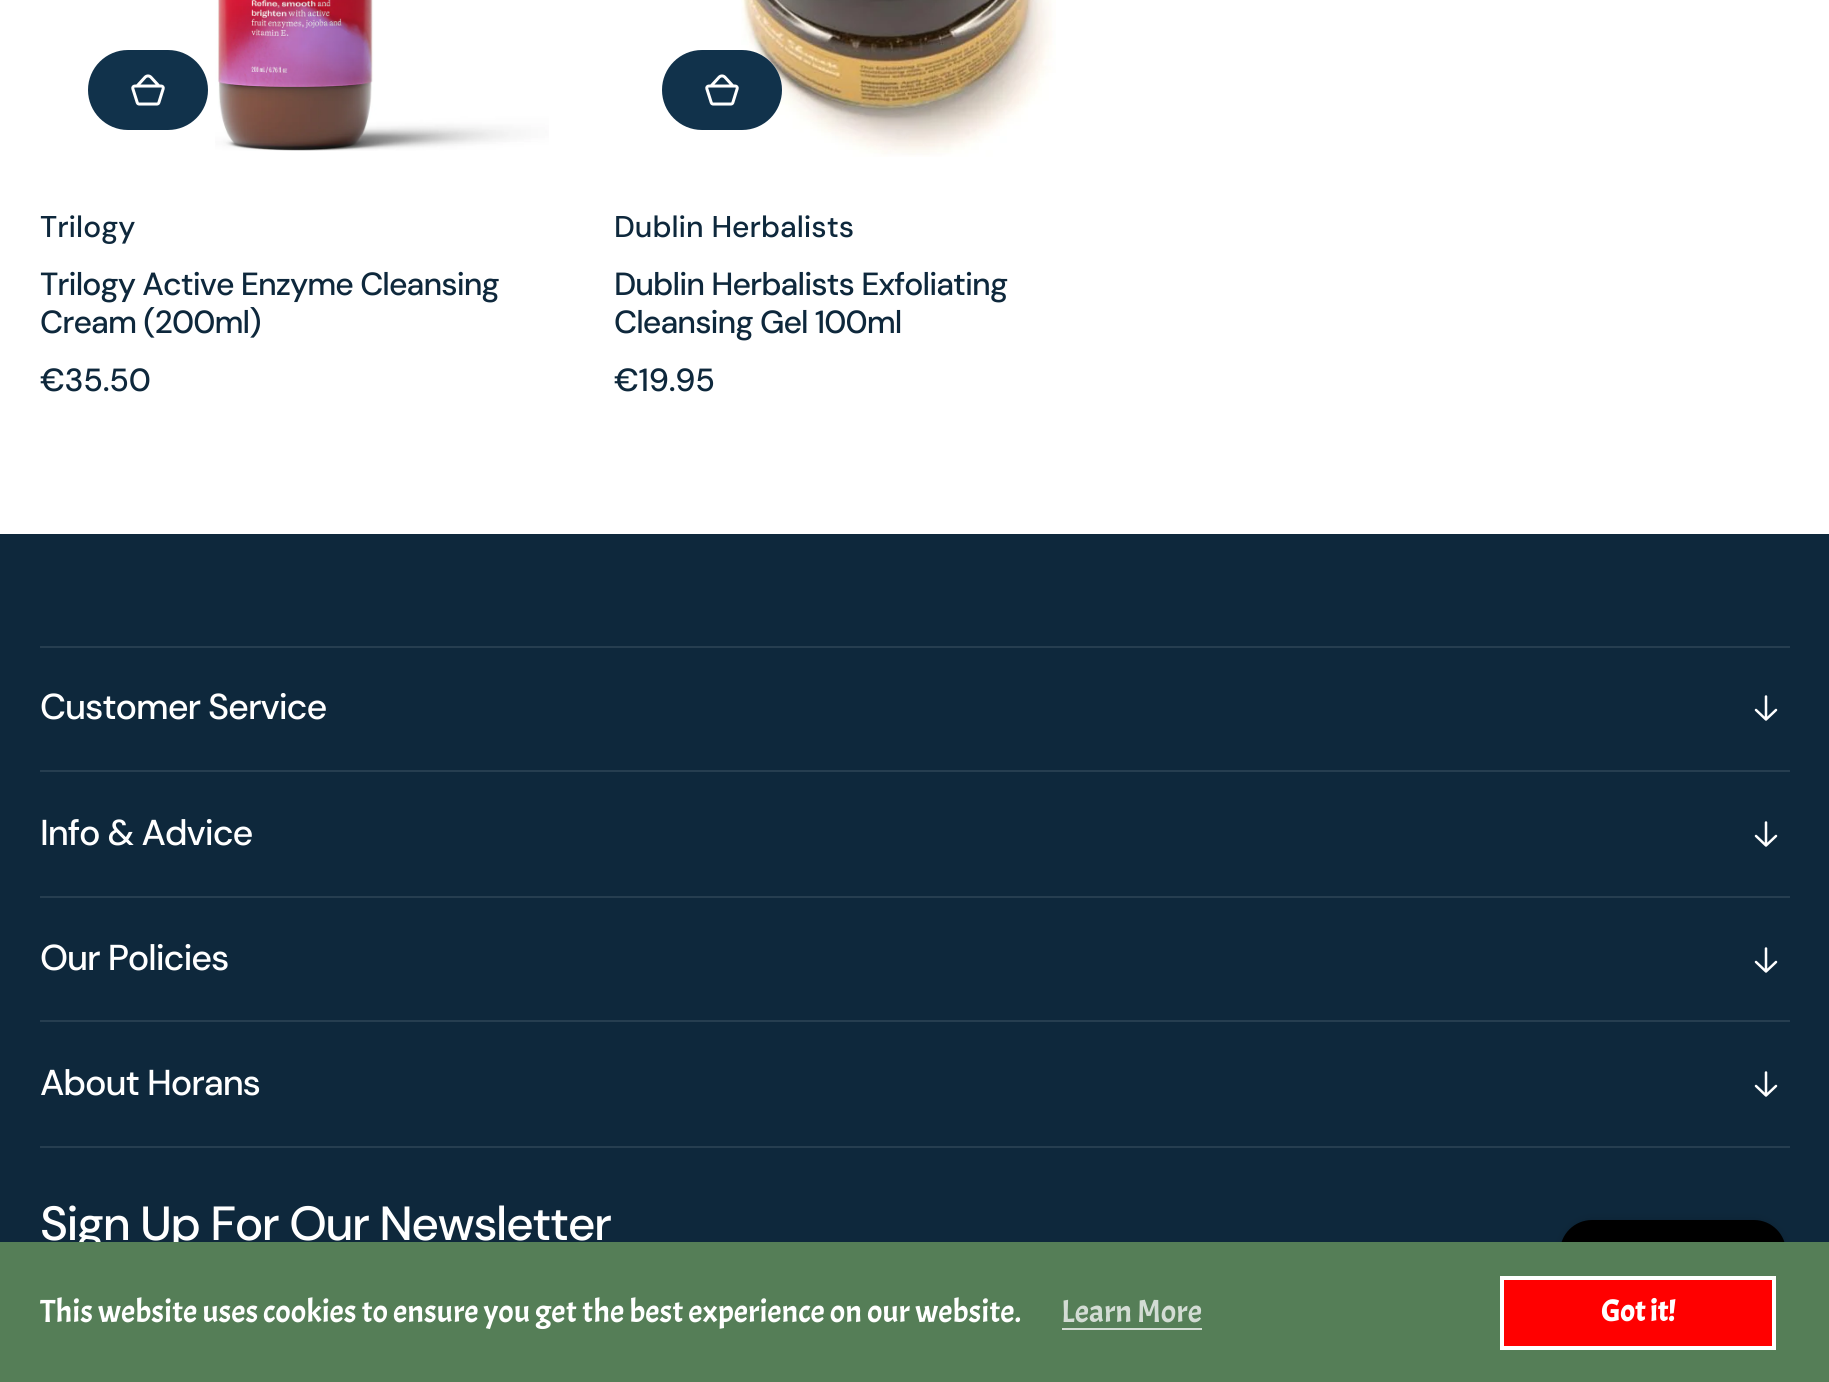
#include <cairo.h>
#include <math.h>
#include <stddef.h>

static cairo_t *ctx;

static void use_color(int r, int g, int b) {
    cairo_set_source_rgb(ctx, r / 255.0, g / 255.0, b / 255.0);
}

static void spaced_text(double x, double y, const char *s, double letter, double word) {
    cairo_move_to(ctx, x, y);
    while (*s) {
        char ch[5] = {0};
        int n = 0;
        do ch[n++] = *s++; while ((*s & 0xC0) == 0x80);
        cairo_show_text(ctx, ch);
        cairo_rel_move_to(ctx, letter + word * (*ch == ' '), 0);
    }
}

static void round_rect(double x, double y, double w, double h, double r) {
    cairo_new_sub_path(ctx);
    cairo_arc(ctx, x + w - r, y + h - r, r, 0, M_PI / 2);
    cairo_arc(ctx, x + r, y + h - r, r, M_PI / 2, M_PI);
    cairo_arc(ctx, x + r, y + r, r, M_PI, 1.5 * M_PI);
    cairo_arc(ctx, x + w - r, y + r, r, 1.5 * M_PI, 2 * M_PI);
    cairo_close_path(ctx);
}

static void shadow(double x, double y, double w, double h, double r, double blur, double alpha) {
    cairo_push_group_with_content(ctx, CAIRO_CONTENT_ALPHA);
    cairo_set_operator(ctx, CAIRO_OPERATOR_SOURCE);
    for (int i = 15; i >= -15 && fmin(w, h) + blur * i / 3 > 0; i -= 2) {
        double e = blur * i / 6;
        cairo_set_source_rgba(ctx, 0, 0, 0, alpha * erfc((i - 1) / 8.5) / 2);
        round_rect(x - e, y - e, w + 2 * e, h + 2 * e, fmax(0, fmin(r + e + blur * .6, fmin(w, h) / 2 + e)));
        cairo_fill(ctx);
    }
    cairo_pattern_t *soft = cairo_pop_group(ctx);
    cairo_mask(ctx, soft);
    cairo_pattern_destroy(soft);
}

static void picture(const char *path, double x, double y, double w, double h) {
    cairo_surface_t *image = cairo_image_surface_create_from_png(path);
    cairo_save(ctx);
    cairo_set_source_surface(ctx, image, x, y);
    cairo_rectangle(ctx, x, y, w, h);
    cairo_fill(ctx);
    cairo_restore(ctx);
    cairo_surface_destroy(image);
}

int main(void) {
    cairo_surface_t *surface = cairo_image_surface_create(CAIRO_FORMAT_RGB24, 1829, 1382);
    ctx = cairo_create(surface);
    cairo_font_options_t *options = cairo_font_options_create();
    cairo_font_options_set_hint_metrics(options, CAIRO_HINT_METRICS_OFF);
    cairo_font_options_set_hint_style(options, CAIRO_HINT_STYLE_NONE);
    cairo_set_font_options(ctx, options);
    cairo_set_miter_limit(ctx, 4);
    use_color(255, 255, 255);
    cairo_paint(ctx);
    use_color(17, 50, 75);
    round_rect(88, 50, 120, 80, 40);
    cairo_fill(ctx);
    picture("img1.png", 131, 74, 34, 32);
    picture("img2.png", 215, 0, 334, 151);
    cairo_select_font_face(ctx, "DM Sans Medium", CAIRO_FONT_SLANT_NORMAL, CAIRO_FONT_WEIGHT_NORMAL);
    cairo_set_font_size(ctx, 30);
    use_color(14, 40, 60);
    cairo_move_to(ctx, 40, 237);
    cairo_show_text(ctx, "Trilogy");
    cairo_select_font_face(ctx, "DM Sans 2 Medium", CAIRO_FONT_SLANT_NORMAL, CAIRO_FONT_WEIGHT_NORMAL);
    cairo_set_font_size(ctx, 32);
    spaced_text(40, 295, "Trilogy Active Enzyme Cleansing", -0.95, 0);
    spaced_text(40, 333, "Cream (200ml)", -0.95, 0);
    spaced_text(40, 391, "€35.50", -0.25, 0);
    picture("img3.png", 741, 0, 315, 157);
    use_color(17, 50, 75);
    round_rect(662, 50, 120, 80, 40);
    cairo_fill(ctx);
    picture("img1.png", 705, 74, 34, 32);
    cairo_select_font_face(ctx, "DM Sans Medium", CAIRO_FONT_SLANT_NORMAL, CAIRO_FONT_WEIGHT_NORMAL);
    cairo_set_font_size(ctx, 30);
    use_color(14, 40, 60);
    cairo_move_to(ctx, 614, 237);
    cairo_show_text(ctx, "Dublin Herbalists");
    cairo_select_font_face(ctx, "DM Sans 2 Medium", CAIRO_FONT_SLANT_NORMAL, CAIRO_FONT_WEIGHT_NORMAL);
    cairo_set_font_size(ctx, 32);
    spaced_text(614, 295, "Dublin Herbalists Exfoliating", -0.95, 0);
    spaced_text(614, 333, "Cleansing Gel 100ml", -0.95, 0);
    spaced_text(614, 391, "€19.95", -0.25, 0);
    cairo_rectangle(ctx, 0, 534, 1829, 708);
    cairo_fill(ctx);
    use_color(38, 62, 80);
    cairo_rectangle(ctx, 40, 646, 1750, 2);
    cairo_fill(ctx);
    cairo_rectangle(ctx, 40, 770, 1750, 2);
    cairo_fill(ctx);
    cairo_select_font_face(ctx, "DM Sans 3 Medium", CAIRO_FONT_SLANT_NORMAL, CAIRO_FONT_WEIGHT_NORMAL);
    cairo_set_font_size(ctx, 36);
    use_color(255, 255, 255);
    spaced_text(40, 719, "Customer Service", -1.1, 0);
    cairo_new_path(ctx);
    cairo_move_to(ctx, 1776, 710);
    cairo_line_to(ctx, 1766, 719.5);
    cairo_move_to(ctx, 1766, 719.5);
    cairo_line_to(ctx, 1756, 710);
    cairo_move_to(ctx, 1766, 719.5);
    cairo_line_to(ctx, 1766, 696.5);
    cairo_set_line_width(ctx, 2.5);
    cairo_set_line_cap(ctx, CAIRO_LINE_CAP_ROUND);
    cairo_set_line_join(ctx, CAIRO_LINE_JOIN_ROUND);
    cairo_stroke(ctx);
    use_color(38, 62, 80);
    cairo_rectangle(ctx, 40, 896, 1750, 2);
    cairo_fill(ctx);
    use_color(255, 255, 255);
    spaced_text(40, 845, "Info & Advice", -1.1, 0);
    cairo_new_path(ctx);
    cairo_move_to(ctx, 1776, 836);
    cairo_line_to(ctx, 1766, 845.5);
    cairo_move_to(ctx, 1766, 845.5);
    cairo_line_to(ctx, 1756, 836);
    cairo_move_to(ctx, 1766, 845.5);
    cairo_line_to(ctx, 1766, 822.5);
    cairo_stroke(ctx);
    use_color(38, 62, 80);
    cairo_rectangle(ctx, 40, 1020, 1750, 2);
    cairo_fill(ctx);
    use_color(255, 255, 255);
    spaced_text(40, 970, "Our Policies", -1.1, 0);
    cairo_new_path(ctx);
    cairo_move_to(ctx, 1776, 962);
    cairo_line_to(ctx, 1766, 971.5);
    cairo_move_to(ctx, 1766, 971.5);
    cairo_line_to(ctx, 1756, 962);
    cairo_move_to(ctx, 1766, 971.5);
    cairo_line_to(ctx, 1766, 948.5);
    cairo_stroke(ctx);
    use_color(38, 62, 80);
    cairo_rectangle(ctx, 40, 1146, 1750, 2);
    cairo_fill(ctx);
    use_color(255, 255, 255);
    spaced_text(40, 1095, "About Horans", -1.1, 0);
    cairo_new_path(ctx);
    cairo_move_to(ctx, 1776, 1086);
    cairo_line_to(ctx, 1766, 1095.5);
    cairo_move_to(ctx, 1766, 1095.5);
    cairo_line_to(ctx, 1756, 1086);
    cairo_move_to(ctx, 1766, 1095.5);
    cairo_line_to(ctx, 1766, 1072.5);
    cairo_stroke(ctx);
    cairo_select_font_face(ctx, "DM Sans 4 Medium", CAIRO_FONT_SLANT_NORMAL, CAIRO_FONT_WEIGHT_NORMAL);
    cairo_set_font_size(ctx, 47.9);
    spaced_text(40, 1240, "Sign Up For Our Newsletter", -1.45, 0);
    use_color(0, 0, 0);
    shadow(1560, 1220, 226, 120, 32, 5, 0.15);
    use_color(0, 0, 0);
    round_rect(1560, 1220, 226, 120, 32);
    cairo_fill(ctx);
    use_color(85, 126, 87);
    cairo_rectangle(ctx, 0, 1242, 1829, 140);
    cairo_fill(ctx);
    cairo_select_font_face(ctx, "Acme", CAIRO_FONT_SLANT_NORMAL, CAIRO_FONT_WEIGHT_NORMAL);
    cairo_set_font_size(ctx, 32);
    use_color(255, 255, 255);
    cairo_move_to(ctx, 40, 1322);
    cairo_show_text(ctx, "This website uses cookies to ensure you get the best experience on our website.");
    use_color(211, 220, 212);
    cairo_move_to(ctx, 1061, 1322);
    cairo_show_text(ctx, "Learn More");
    cairo_rectangle(ctx, 1062, 1328, 140, 2);
    cairo_fill(ctx);
    use_color(255, 0, 0);
    cairo_rectangle(ctx, 1502, 1278, 272, 70);
    cairo_fill_preserve(ctx);
    use_color(255, 255, 255);
    cairo_set_line_width(ctx, 4);
    cairo_set_line_cap(ctx, CAIRO_LINE_CAP_BUTT);
    cairo_set_line_join(ctx, CAIRO_LINE_JOIN_MITER);
    cairo_stroke(ctx);
    cairo_select_font_face(ctx, "Acme", CAIRO_FONT_SLANT_NORMAL, CAIRO_FONT_WEIGHT_BOLD);
    cairo_set_font_size(ctx, 30);
    cairo_move_to(ctx, 1601, 1321);
    cairo_show_text(ctx, "Got it!");
    cairo_surface_write_to_png(surface, "result.png");
    cairo_font_options_destroy(options);
    cairo_destroy(ctx);
    cairo_surface_destroy(surface);
    return 0;
}
